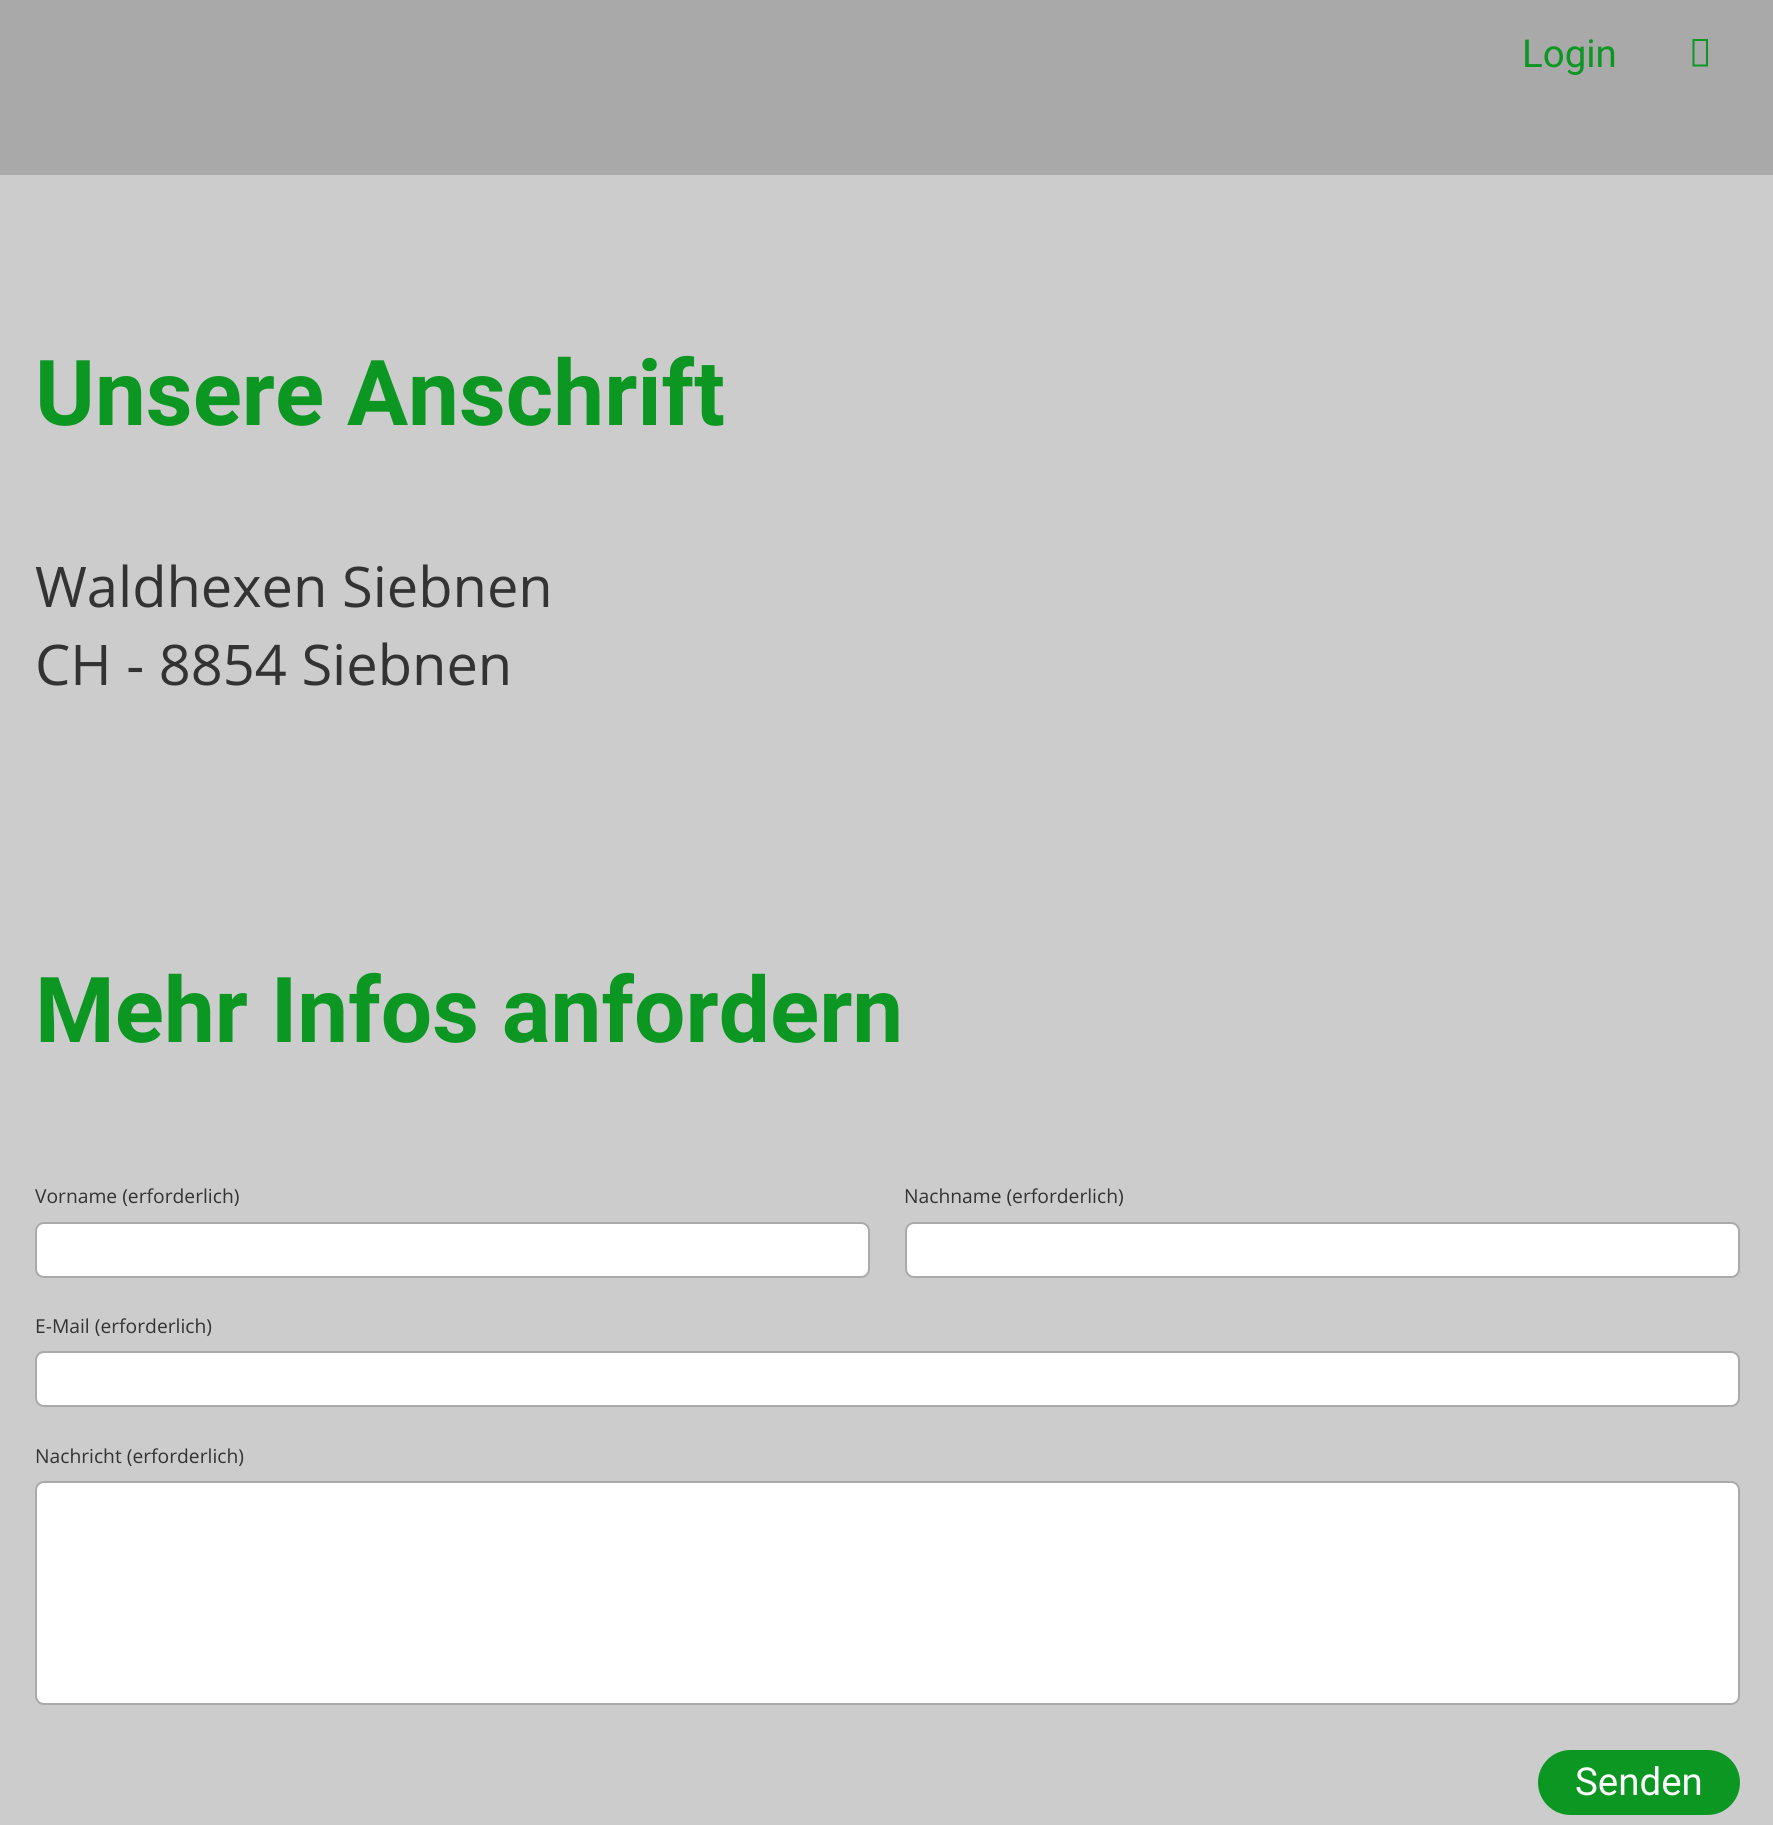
#include <cairo.h>
#include <math.h>
#include <stddef.h>

static cairo_t *ctx;

static void use_color(int r, int g, int b) {
    cairo_set_source_rgb(ctx, r / 255.0, g / 255.0, b / 255.0);
}

static void round_rect(double x, double y, double w, double h, double r) {
    cairo_new_sub_path(ctx);
    cairo_arc(ctx, x + w - r, y + h - r, r, 0, M_PI / 2);
    cairo_arc(ctx, x + r, y + h - r, r, M_PI / 2, M_PI);
    cairo_arc(ctx, x + r, y + r, r, M_PI, 1.5 * M_PI);
    cairo_arc(ctx, x + w - r, y + r, r, 1.5 * M_PI, 2 * M_PI);
    cairo_close_path(ctx);
}

int main(void) {
    cairo_surface_t *surface = cairo_image_surface_create(CAIRO_FORMAT_RGB24, 1773, 1825);
    ctx = cairo_create(surface);
    cairo_font_options_t *options = cairo_font_options_create();
    cairo_font_options_set_hint_metrics(options, CAIRO_HINT_METRICS_OFF);
    cairo_font_options_set_hint_style(options, CAIRO_HINT_STYLE_NONE);
    cairo_set_font_options(ctx, options);
    cairo_set_miter_limit(ctx, 4);
    use_color(169, 169, 169);
    cairo_paint(ctx);
    cairo_select_font_face(ctx, "Roboto", CAIRO_FONT_SLANT_NORMAL, CAIRO_FONT_WEIGHT_NORMAL);
    cairo_set_font_size(ctx, 38.5);
    use_color(12, 151, 35);
    cairo_move_to(ctx, 1522, 67);
    cairo_show_text(ctx, "Login");
    cairo_new_path(ctx);
    cairo_move_to(ctx, 1692.5, 66.5);
    cairo_line_to(ctx, 1692.5, 39);
    cairo_line_to(ctx, 1708, 39);
    cairo_line_to(ctx, 1708, 66.5);
    cairo_close_path(ctx);
    cairo_move_to(ctx, 1694.5, 64.5);
    cairo_line_to(ctx, 1706, 64.5);
    cairo_line_to(ctx, 1706, 41);
    cairo_line_to(ctx, 1694.5, 41);
    cairo_close_path(ctx);
    cairo_fill(ctx);
    use_color(204, 204, 204);
    cairo_rectangle(ctx, 0, 175, 1773, 1650);
    cairo_fill(ctx);
    cairo_select_font_face(ctx, "Roboto", CAIRO_FONT_SLANT_NORMAL, CAIRO_FONT_WEIGHT_BOLD);
    cairo_set_font_size(ctx, 91);
    use_color(12, 151, 35);
    cairo_move_to(ctx, 35, 425);
    cairo_show_text(ctx, "Unsere Anschrift");
    cairo_select_font_face(ctx, "Open Sans", CAIRO_FONT_SLANT_NORMAL, CAIRO_FONT_WEIGHT_NORMAL);
    cairo_set_font_size(ctx, 56);
    use_color(51, 51, 51);
    cairo_move_to(ctx, 35, 607);
    cairo_show_text(ctx, "Waldhexen Siebnen");
    cairo_move_to(ctx, 35, 685);
    cairo_show_text(ctx, "CH - 8854 Siebnen");
    cairo_select_font_face(ctx, "Roboto", CAIRO_FONT_SLANT_NORMAL, CAIRO_FONT_WEIGHT_BOLD);
    cairo_set_font_size(ctx, 91);
    use_color(12, 151, 35);
    cairo_move_to(ctx, 35, 1042);
    cairo_show_text(ctx, "Mehr Infos anfordern");
    cairo_select_font_face(ctx, "Open Sans", CAIRO_FONT_SLANT_NORMAL, CAIRO_FONT_WEIGHT_NORMAL);
    cairo_set_font_size(ctx, 19.25);
    use_color(51, 51, 51);
    cairo_move_to(ctx, 35, 1203);
    cairo_show_text(ctx, "Vorname (erforderlich)");
    use_color(255, 255, 255);
    round_rect(36, 1223, 833, 54, 8);
    cairo_fill_preserve(ctx);
    use_color(170, 170, 170);
    cairo_stroke(ctx);
    use_color(51, 51, 51);
    cairo_move_to(ctx, 904, 1203);
    cairo_show_text(ctx, "Nachname (erforderlich)");
    use_color(255, 255, 255);
    round_rect(906, 1223, 833, 54, 8);
    cairo_fill_preserve(ctx);
    use_color(170, 170, 170);
    cairo_stroke(ctx);
    use_color(51, 51, 51);
    cairo_move_to(ctx, 35, 1333);
    cairo_show_text(ctx, "E-Mail (erforderlich)");
    use_color(255, 255, 255);
    round_rect(36, 1352, 1703, 54, 8);
    cairo_fill_preserve(ctx);
    use_color(170, 170, 170);
    cairo_stroke(ctx);
    use_color(51, 51, 51);
    cairo_move_to(ctx, 35, 1463);
    cairo_show_text(ctx, "Nachricht (erforderlich)");
    use_color(255, 255, 255);
    round_rect(36, 1482, 1703, 222, 8);
    cairo_fill_preserve(ctx);
    use_color(170, 170, 170);
    cairo_stroke(ctx);
    use_color(12, 151, 35);
    round_rect(1539, 1751, 200, 63, 31.5);
    cairo_fill_preserve(ctx);
    cairo_stroke(ctx);
    cairo_select_font_face(ctx, "Roboto", CAIRO_FONT_SLANT_NORMAL, CAIRO_FONT_WEIGHT_NORMAL);
    cairo_set_font_size(ctx, 38.5);
    use_color(255, 255, 255);
    cairo_move_to(ctx, 1575, 1795);
    cairo_show_text(ctx, "Senden");
    cairo_surface_write_to_png(surface, "result.png");
    cairo_font_options_destroy(options);
    cairo_destroy(ctx);
    cairo_surface_destroy(surface);
    return 0;
}
